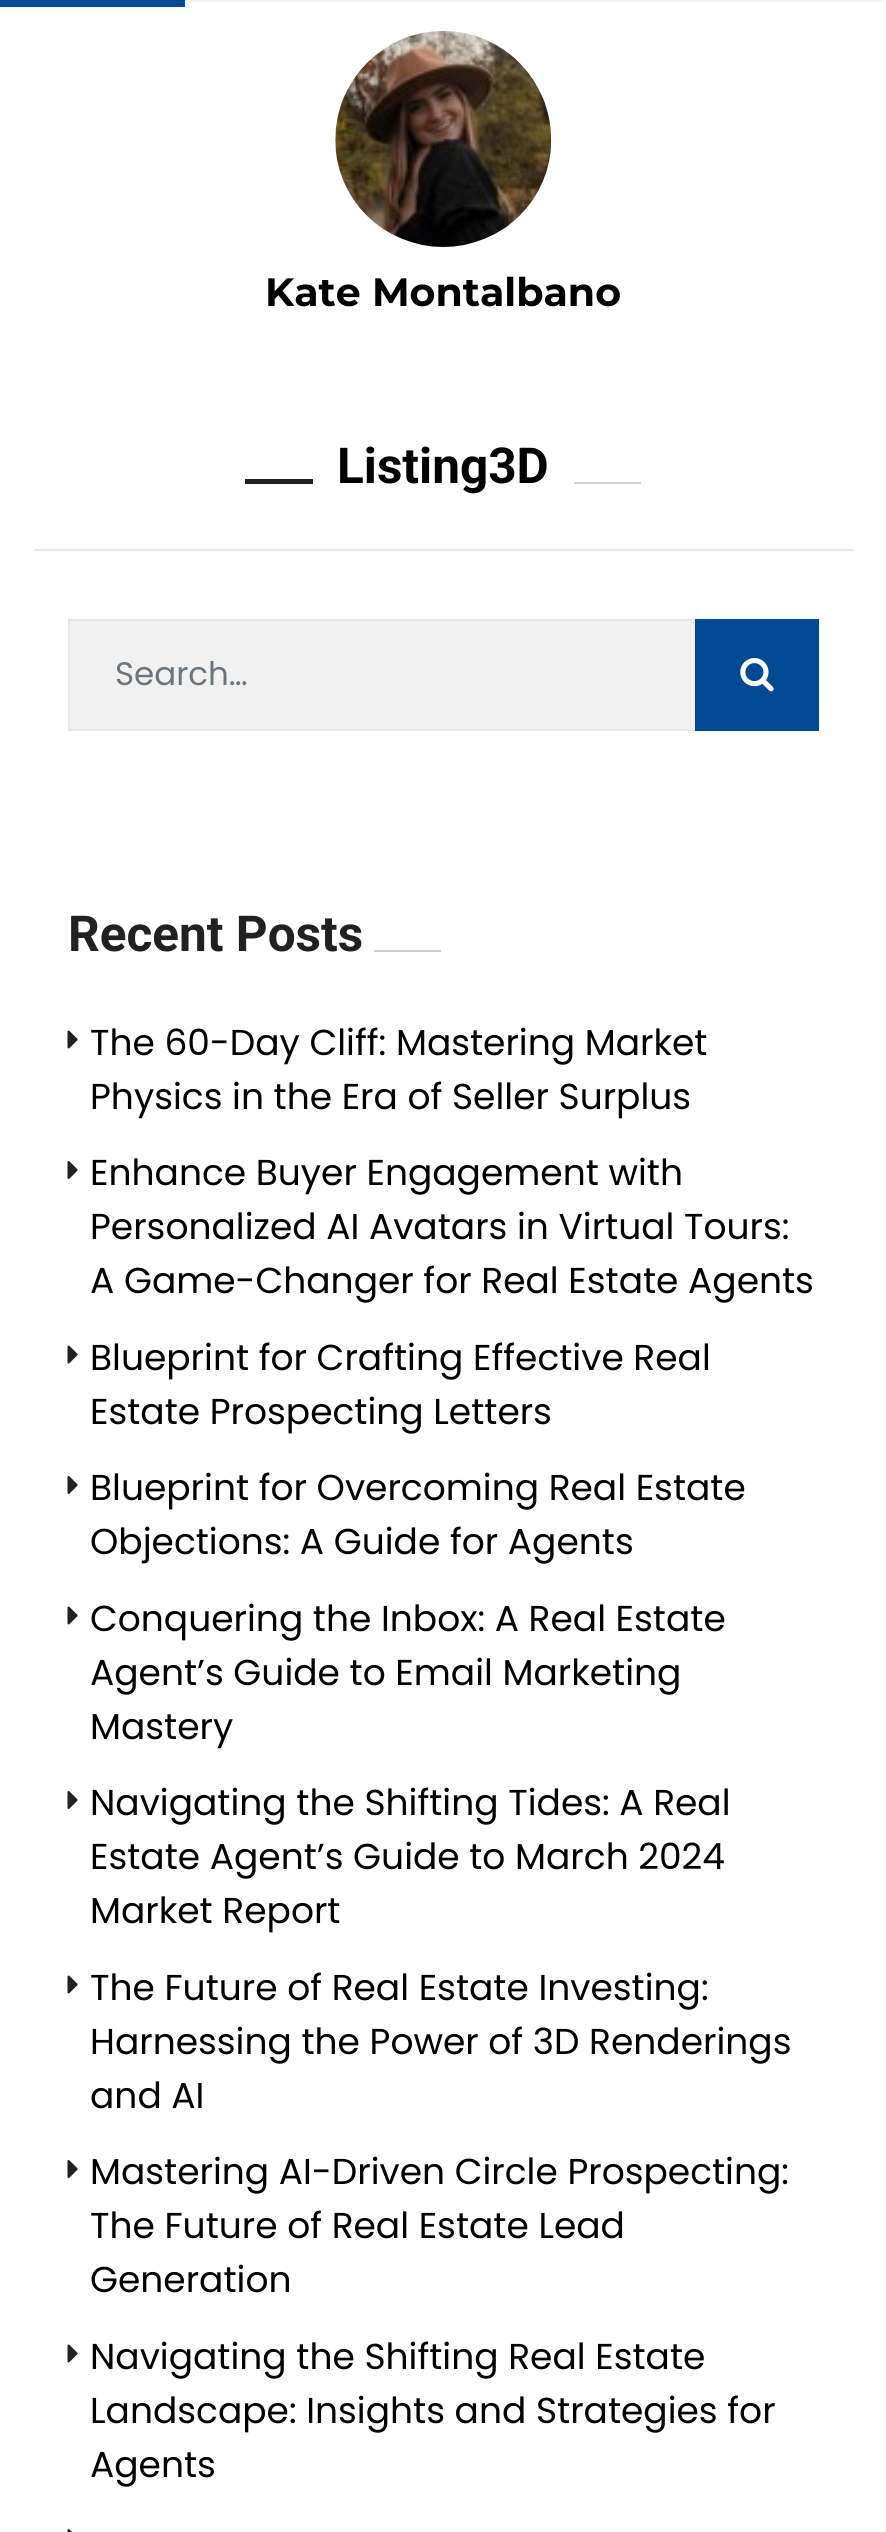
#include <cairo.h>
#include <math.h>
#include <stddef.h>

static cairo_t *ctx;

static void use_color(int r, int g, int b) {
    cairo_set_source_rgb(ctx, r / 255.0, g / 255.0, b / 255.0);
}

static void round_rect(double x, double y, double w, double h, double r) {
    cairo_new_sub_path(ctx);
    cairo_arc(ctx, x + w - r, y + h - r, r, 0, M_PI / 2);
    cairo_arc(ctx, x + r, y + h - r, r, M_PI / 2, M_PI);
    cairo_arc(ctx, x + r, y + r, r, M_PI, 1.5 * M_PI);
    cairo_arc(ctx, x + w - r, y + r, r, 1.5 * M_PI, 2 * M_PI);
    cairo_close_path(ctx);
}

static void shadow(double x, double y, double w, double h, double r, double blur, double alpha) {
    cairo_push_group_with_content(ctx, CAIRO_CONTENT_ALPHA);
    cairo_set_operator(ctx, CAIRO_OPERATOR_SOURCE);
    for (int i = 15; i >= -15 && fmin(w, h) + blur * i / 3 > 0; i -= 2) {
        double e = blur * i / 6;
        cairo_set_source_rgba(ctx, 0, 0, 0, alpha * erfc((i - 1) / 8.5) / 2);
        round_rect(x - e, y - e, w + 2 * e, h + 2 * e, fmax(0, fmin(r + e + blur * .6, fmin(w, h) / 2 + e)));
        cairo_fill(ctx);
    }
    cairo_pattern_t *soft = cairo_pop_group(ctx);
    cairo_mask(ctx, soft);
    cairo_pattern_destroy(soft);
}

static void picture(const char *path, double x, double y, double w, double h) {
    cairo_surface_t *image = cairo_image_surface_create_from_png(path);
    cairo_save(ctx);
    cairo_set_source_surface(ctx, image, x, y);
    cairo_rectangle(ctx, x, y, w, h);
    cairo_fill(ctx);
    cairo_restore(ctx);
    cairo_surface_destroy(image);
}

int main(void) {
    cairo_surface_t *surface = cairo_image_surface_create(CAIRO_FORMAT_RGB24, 886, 2532);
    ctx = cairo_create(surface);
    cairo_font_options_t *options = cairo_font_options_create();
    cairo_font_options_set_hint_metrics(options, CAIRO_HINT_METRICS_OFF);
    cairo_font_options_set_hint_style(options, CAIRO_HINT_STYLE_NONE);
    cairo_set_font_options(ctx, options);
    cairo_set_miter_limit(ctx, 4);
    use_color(255, 255, 255);
    cairo_paint(ctx);
    use_color(0, 0, 0);
    shadow(5, -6, 877, 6, 0, 2, 0.15);
    use_color(0, 73, 148);
    cairo_rectangle(ctx, 0, 0, 185, 7);
    cairo_fill(ctx);
    picture("img1.png", 335, 31, 217, 216);
    cairo_select_font_face(ctx, "Montserrat Thin", CAIRO_FONT_SLANT_NORMAL, CAIRO_FONT_WEIGHT_NORMAL);
    cairo_set_font_size(ctx, 39.5);
    use_color(0, 0, 0);
    cairo_move_to(ctx, 265, 306);
    cairo_show_text(ctx, "Kate Montalbano");
    use_color(33, 33, 33);
    cairo_rectangle(ctx, 245, 479, 68, 5);
    cairo_fill(ctx);
    cairo_select_font_face(ctx, "Roboto", CAIRO_FONT_SLANT_NORMAL, CAIRO_FONT_WEIGHT_BOLD);
    cairo_set_font_size(ctx, 49.5);
    use_color(0, 0, 0);
    cairo_move_to(ctx, 337, 483);
    cairo_show_text(ctx, "Listing3D");
    use_color(210, 210, 210);
    cairo_rectangle(ctx, 574, 482, 67, 2);
    cairo_fill(ctx);
    use_color(231, 231, 231);
    cairo_rectangle(ctx, 34, 549, 819, 2);
    cairo_fill(ctx);
    use_color(241, 241, 241);
    cairo_rectangle(ctx, 70, 621, 625, 108);
    cairo_fill(ctx);
    use_color(231, 231, 231);
    cairo_rectangle(ctx, 68, 619, 627, 2);
    cairo_fill(ctx);
    cairo_rectangle(ctx, 68, 729, 627, 2);
    cairo_fill(ctx);
    cairo_rectangle(ctx, 68, 619, 2, 112);
    cairo_fill(ctx);
    cairo_select_font_face(ctx, "Poppins", CAIRO_FONT_SLANT_NORMAL, CAIRO_FONT_WEIGHT_NORMAL);
    cairo_set_font_size(ctx, 32.5);
    use_color(108, 117, 125);
    cairo_move_to(ctx, 115, 685);
    cairo_show_text(ctx, "Search…");
    use_color(0, 73, 148);
    cairo_rectangle(ctx, 695, 619, 124, 112);
    cairo_fill(ctx);
    picture("img2.png", 740, 658, 34, 34);
    cairo_select_font_face(ctx, "Roboto", CAIRO_FONT_SLANT_NORMAL, CAIRO_FONT_WEIGHT_BOLD);
    cairo_set_font_size(ctx, 49.5);
    use_color(33, 33, 33);
    cairo_move_to(ctx, 68, 951);
    cairo_show_text(ctx, "Recent Posts");
    use_color(210, 210, 210);
    cairo_rectangle(ctx, 374, 950, 67, 2);
    cairo_fill(ctx);
    picture("img3.png", 67, 1030, 11, 19);
    cairo_select_font_face(ctx, "Poppins", CAIRO_FONT_SLANT_NORMAL, CAIRO_FONT_WEIGHT_NORMAL);
    cairo_set_font_size(ctx, 36);
    use_color(0, 0, 0);
    cairo_move_to(ctx, 90, 1055);
    cairo_show_text(ctx, "The 60-Day Cliff: Mastering Market");
    cairo_move_to(ctx, 90, 1109);
    cairo_show_text(ctx, "Physics in the Era of Seller Surplus");
    picture("img4.png", 67, 1161, 11, 18);
    cairo_move_to(ctx, 90, 1185);
    cairo_show_text(ctx, "Enhance Buyer Engagement with");
    cairo_move_to(ctx, 90, 1239);
    cairo_show_text(ctx, "Personalized AI Avatars in Virtual Tours:");
    cairo_move_to(ctx, 90, 1293);
    cairo_show_text(ctx, "A Game-Changer for Real Estate Agents");
    picture("img3.png", 67, 1345, 11, 19);
    cairo_move_to(ctx, 90, 1370);
    cairo_show_text(ctx, "Blueprint for Crafting Effective Real");
    cairo_move_to(ctx, 90, 1424);
    cairo_show_text(ctx, "Estate Prospecting Letters");
    picture("img4.png", 67, 1476, 11, 18);
    cairo_move_to(ctx, 90, 1500);
    cairo_show_text(ctx, "Blueprint for Overcoming Real Estate");
    cairo_move_to(ctx, 90, 1554);
    cairo_show_text(ctx, "Objections: A Guide for Agents");
    picture("img3.png", 67, 1606, 11, 19);
    cairo_move_to(ctx, 90, 1631);
    cairo_show_text(ctx, "Conquering the Inbox: A Real Estate");
    cairo_move_to(ctx, 90, 1685);
    cairo_show_text(ctx, "Agent’s Guide to Email Marketing");
    cairo_move_to(ctx, 90, 1739);
    cairo_show_text(ctx, "Mastery");
    picture("img4.png", 67, 1791, 11, 18);
    cairo_move_to(ctx, 90, 1815);
    cairo_show_text(ctx, "Navigating the Shifting Tides: A Real");
    cairo_move_to(ctx, 90, 1869);
    cairo_show_text(ctx, "Estate Agent’s Guide to March 2024");
    cairo_move_to(ctx, 90, 1923);
    cairo_show_text(ctx, "Market Report");
    picture("img3.png", 67, 1975, 11, 19);
    cairo_move_to(ctx, 90, 2000);
    cairo_show_text(ctx, "The Future of Real Estate Investing:");
    cairo_move_to(ctx, 90, 2054);
    cairo_show_text(ctx, "Harnessing the Power of 3D Renderings");
    cairo_move_to(ctx, 90, 2108);
    cairo_show_text(ctx, "and AI");
    picture("img4.png", 67, 2160, 11, 18);
    cairo_move_to(ctx, 90, 2184);
    cairo_show_text(ctx, "Mastering AI-Driven Circle Prospecting:");
    cairo_move_to(ctx, 90, 2238);
    cairo_show_text(ctx, "The Future of Real Estate Lead");
    cairo_move_to(ctx, 90, 2292);
    cairo_show_text(ctx, "Generation");
    picture("img3.png", 67, 2344, 11, 19);
    cairo_move_to(ctx, 90, 2369);
    cairo_show_text(ctx, "Navigating the Shifting Real Estate");
    cairo_move_to(ctx, 90, 2423);
    cairo_show_text(ctx, "Landscape: Insights and Strategies for");
    cairo_move_to(ctx, 90, 2477);
    cairo_show_text(ctx, "Agents");
    picture("img5.png", 67, 2529, 5, 3);
    cairo_surface_write_to_png(surface, "result.png");
    cairo_font_options_destroy(options);
    cairo_destroy(ctx);
    cairo_surface_destroy(surface);
    return 0;
}
